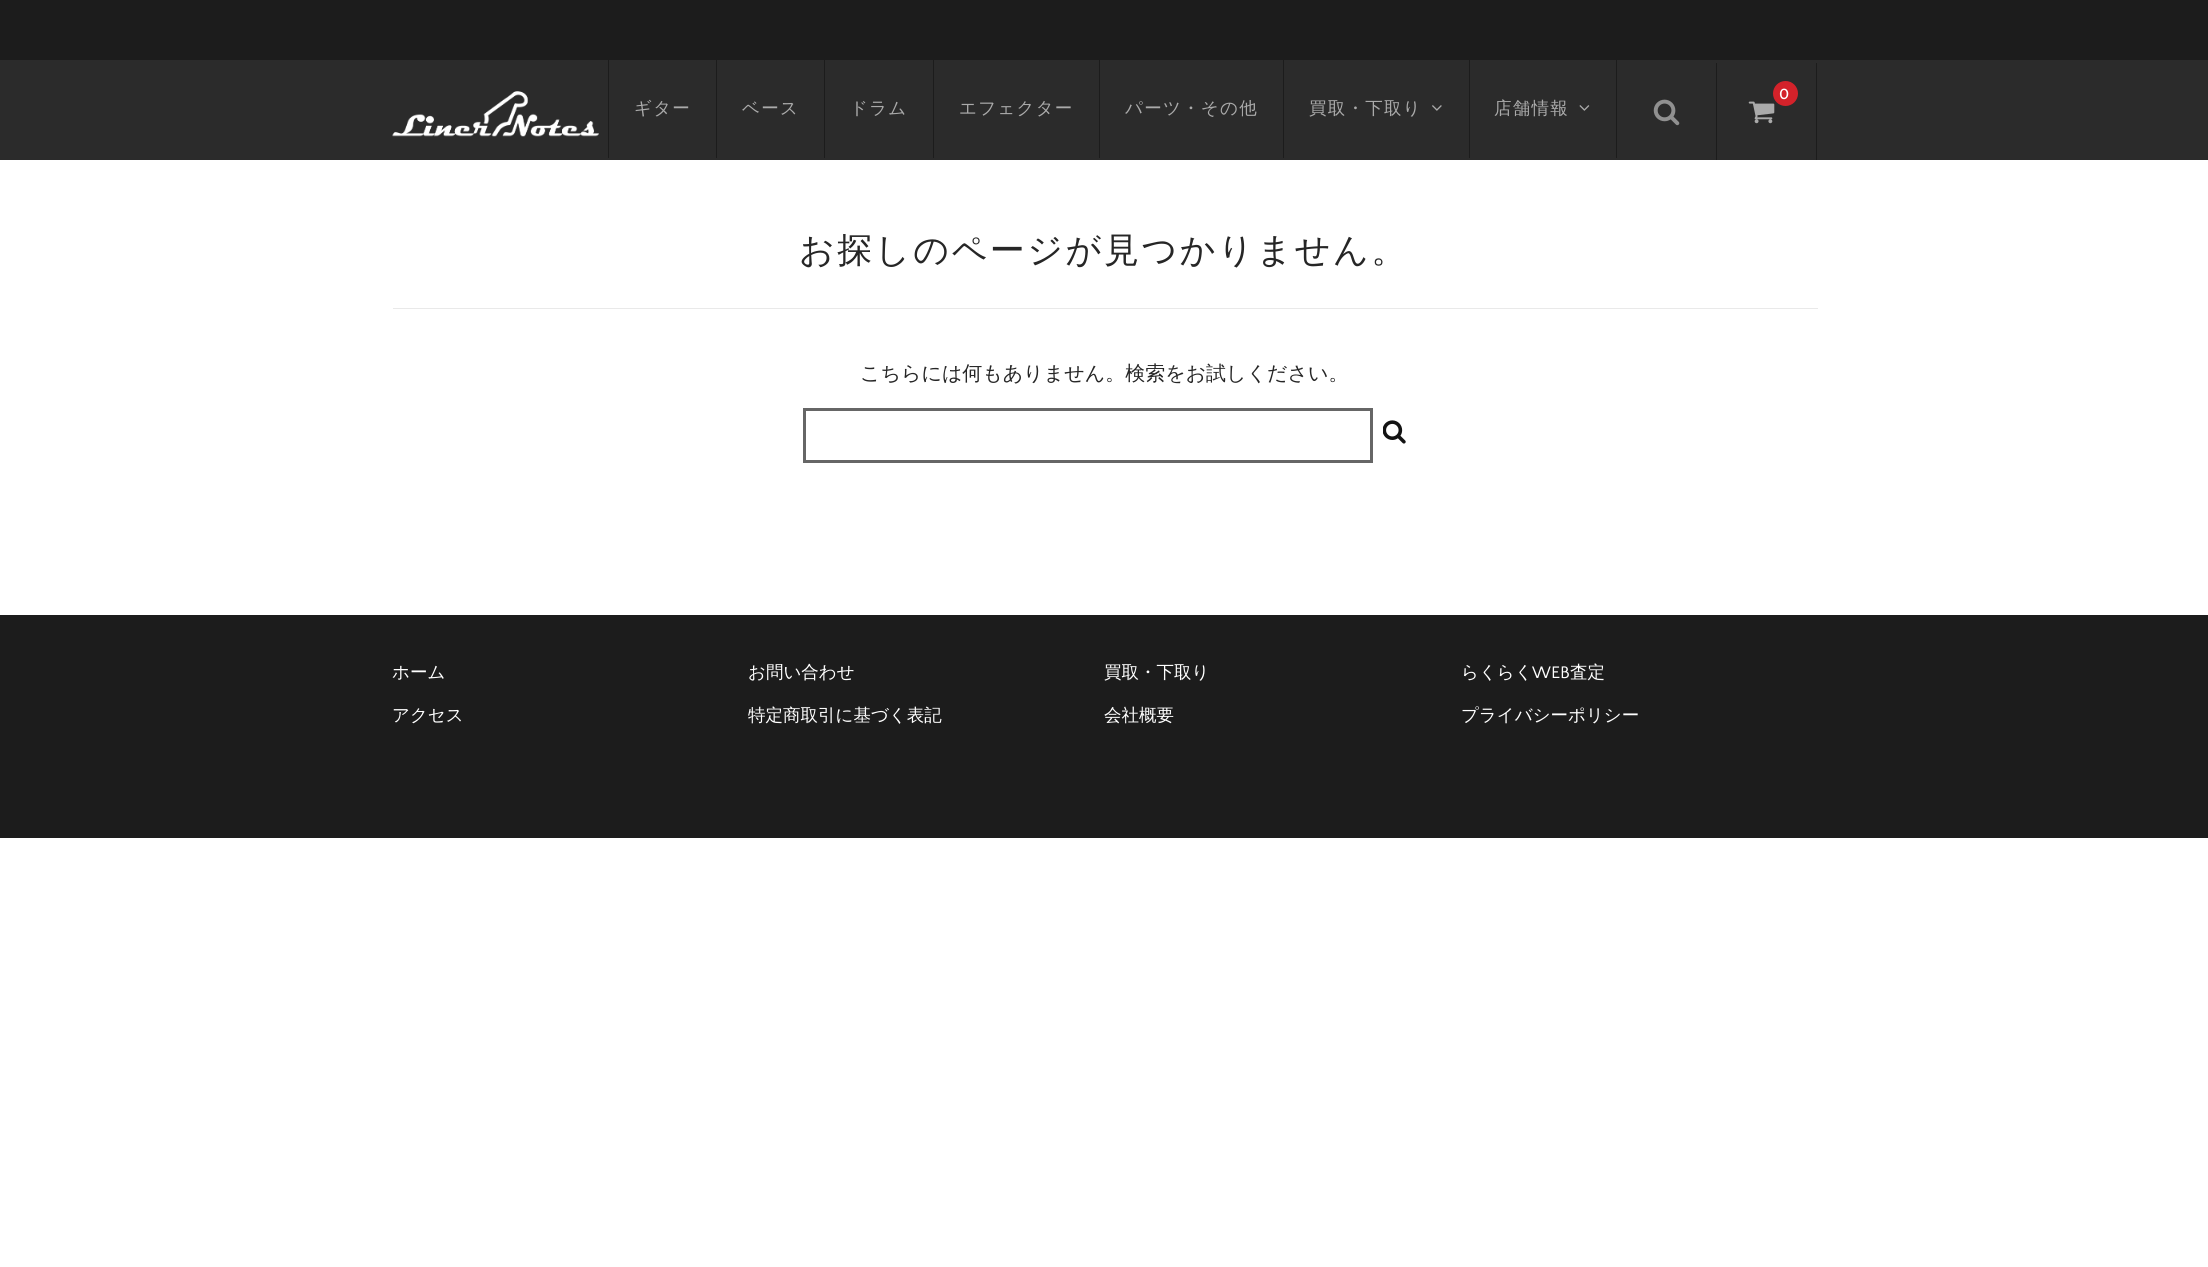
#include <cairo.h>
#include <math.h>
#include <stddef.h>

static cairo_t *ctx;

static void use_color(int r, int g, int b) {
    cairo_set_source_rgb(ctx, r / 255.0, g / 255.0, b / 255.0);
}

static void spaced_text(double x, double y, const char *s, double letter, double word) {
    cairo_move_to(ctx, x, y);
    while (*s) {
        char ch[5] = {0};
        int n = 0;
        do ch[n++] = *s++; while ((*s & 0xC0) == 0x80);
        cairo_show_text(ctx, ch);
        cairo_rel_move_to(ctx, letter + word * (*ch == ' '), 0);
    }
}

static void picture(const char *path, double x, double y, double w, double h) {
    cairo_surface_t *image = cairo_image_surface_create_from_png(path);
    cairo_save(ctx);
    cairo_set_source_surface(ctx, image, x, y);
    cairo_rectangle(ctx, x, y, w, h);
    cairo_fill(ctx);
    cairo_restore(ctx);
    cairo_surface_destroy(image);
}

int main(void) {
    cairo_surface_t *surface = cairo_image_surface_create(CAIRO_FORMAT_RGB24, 2208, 1267);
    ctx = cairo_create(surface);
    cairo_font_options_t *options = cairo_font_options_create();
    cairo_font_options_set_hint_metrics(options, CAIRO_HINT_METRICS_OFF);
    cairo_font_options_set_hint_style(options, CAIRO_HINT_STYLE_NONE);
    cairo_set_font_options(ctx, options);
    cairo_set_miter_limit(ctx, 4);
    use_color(255, 255, 255);
    cairo_paint(ctx);
    use_color(43, 43, 43);
    cairo_rectangle(ctx, 0, 60, 2208, 100);
    cairo_fill(ctx);
    use_color(28, 28, 28);
    cairo_rectangle(ctx, 0, 0, 2208, 60);
    cairo_fill(ctx);
    picture("img1.png", 392, 91, 207, 46);
    cairo_rectangle(ctx, 1716, 63, 1, 97);
    cairo_fill(ctx);
    picture("img2.png", 1653, 99, 27, 27);
    cairo_rectangle(ctx, 1816, 63, 1, 97);
    cairo_fill(ctx);
    picture("img3.png", 1748, 101, 27, 23);
    use_color(211, 34, 42);
    cairo_arc(ctx, 1785.5, 93.5, 12.5, 0, 2 * M_PI);
    cairo_fill(ctx);
    cairo_select_font_face(ctx, "Quattrocento Sans", CAIRO_FONT_SLANT_NORMAL, CAIRO_FONT_WEIGHT_BOLD);
    cairo_set_font_size(ctx, 15);
    use_color(255, 255, 255);
    spaced_text(1779, 99, "0", 1.25, 0);
    use_color(28, 28, 28);
    cairo_rectangle(ctx, 716, 60, 1, 98);
    cairo_fill(ctx);
    cairo_rectangle(ctx, 608, 60, 1, 98);
    cairo_fill(ctx);
    cairo_select_font_face(ctx, "WenQuanYi Zen Hei Medium", CAIRO_FONT_SLANT_NORMAL, CAIRO_FONT_WEIGHT_NORMAL);
    cairo_set_font_size(ctx, 17.5);
    use_color(170, 170, 170);
    spaced_text(634, 114, "ギター", 1.25, 0);
    use_color(28, 28, 28);
    cairo_rectangle(ctx, 824, 60, 1, 98);
    cairo_fill(ctx);
    use_color(170, 170, 170);
    spaced_text(742, 114, "ベース", 1.25, 0);
    use_color(28, 28, 28);
    cairo_rectangle(ctx, 933, 60, 1, 98);
    cairo_fill(ctx);
    use_color(170, 170, 170);
    spaced_text(850, 114, "ドラム", 1.25, 0);
    use_color(28, 28, 28);
    cairo_rectangle(ctx, 1099, 60, 1, 98);
    cairo_fill(ctx);
    use_color(170, 170, 170);
    spaced_text(959, 114, "エフェクター", 1.25, 0);
    use_color(28, 28, 28);
    cairo_rectangle(ctx, 1283, 60, 1, 98);
    cairo_fill(ctx);
    use_color(170, 170, 170);
    spaced_text(1125, 114, "パーツ・その他", 1.25, 0);
    use_color(28, 28, 28);
    cairo_rectangle(ctx, 1469, 60, 1, 98);
    cairo_fill(ctx);
    use_color(170, 170, 170);
    spaced_text(1309, 114, "買取・下取り", 1.25, 0);
    picture("img4.png", 1432, 105, 10, 6);
    use_color(28, 28, 28);
    cairo_rectangle(ctx, 1616, 60, 1, 98);
    cairo_fill(ctx);
    use_color(170, 170, 170);
    spaced_text(1494, 114, "店舗情報", 1.25, 0);
    picture("img5.png", 1579, 105, 11, 6);
    use_color(233, 233, 233);
    cairo_rectangle(ctx, 393, 308, 1425, 1);
    cairo_fill(ctx);
    cairo_set_font_size(ctx, 35);
    use_color(38, 38, 38);
    spaced_text(799, 262, "お探しのページが見つかりません。", 2.5, 0);
    cairo_set_font_size(ctx, 20);
    cairo_move_to(ctx, 860, 380);
    cairo_show_text(ctx, "こちらには何もありません。検索をお試しください。");
    cairo_rectangle(ctx, 804.5, 409.5, 567, 52);
    use_color(102, 102, 102);
    cairo_set_line_width(ctx, 3);
    cairo_stroke(ctx);
    picture("img6.png", 1383, 420, 23, 24);
    use_color(28, 28, 28);
    cairo_rectangle(ctx, 0, 615, 2208, 223);
    cairo_fill(ctx);
    cairo_set_font_size(ctx, 17.5);
    use_color(255, 255, 255);
    cairo_move_to(ctx, 392, 678);
    cairo_show_text(ctx, "ホーム");
    cairo_move_to(ctx, 748, 678);
    cairo_show_text(ctx, "お問い合わせ");
    cairo_move_to(ctx, 1104, 678);
    cairo_show_text(ctx, "買取・下取り");
    cairo_move_to(ctx, 1461, 678);
    cairo_show_text(ctx, "らくらく");
    cairo_select_font_face(ctx, "Quattrocento Sans", CAIRO_FONT_SLANT_NORMAL, CAIRO_FONT_WEIGHT_NORMAL);
    cairo_move_to(ctx, 1532, 678);
    cairo_show_text(ctx, "WEB");
    cairo_select_font_face(ctx, "WenQuanYi Zen Hei Medium", CAIRO_FONT_SLANT_NORMAL, CAIRO_FONT_WEIGHT_NORMAL);
    cairo_move_to(ctx, 1570, 678);
    cairo_show_text(ctx, "査定");
    cairo_move_to(ctx, 392, 721);
    cairo_show_text(ctx, "アクセス");
    cairo_move_to(ctx, 748, 721);
    cairo_show_text(ctx, "特定商取引に基づく表記");
    cairo_move_to(ctx, 1104, 721);
    cairo_show_text(ctx, "会社概要");
    cairo_move_to(ctx, 1461, 721);
    cairo_show_text(ctx, "プライバシーポリシー");
    cairo_surface_write_to_png(surface, "result.png");
    cairo_font_options_destroy(options);
    cairo_destroy(ctx);
    cairo_surface_destroy(surface);
    return 0;
}
